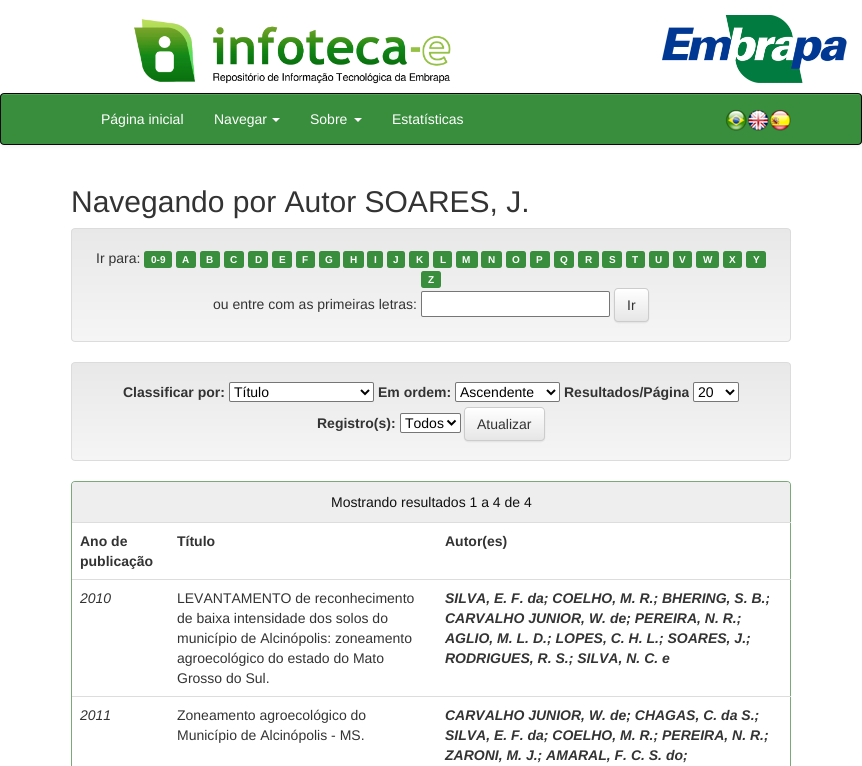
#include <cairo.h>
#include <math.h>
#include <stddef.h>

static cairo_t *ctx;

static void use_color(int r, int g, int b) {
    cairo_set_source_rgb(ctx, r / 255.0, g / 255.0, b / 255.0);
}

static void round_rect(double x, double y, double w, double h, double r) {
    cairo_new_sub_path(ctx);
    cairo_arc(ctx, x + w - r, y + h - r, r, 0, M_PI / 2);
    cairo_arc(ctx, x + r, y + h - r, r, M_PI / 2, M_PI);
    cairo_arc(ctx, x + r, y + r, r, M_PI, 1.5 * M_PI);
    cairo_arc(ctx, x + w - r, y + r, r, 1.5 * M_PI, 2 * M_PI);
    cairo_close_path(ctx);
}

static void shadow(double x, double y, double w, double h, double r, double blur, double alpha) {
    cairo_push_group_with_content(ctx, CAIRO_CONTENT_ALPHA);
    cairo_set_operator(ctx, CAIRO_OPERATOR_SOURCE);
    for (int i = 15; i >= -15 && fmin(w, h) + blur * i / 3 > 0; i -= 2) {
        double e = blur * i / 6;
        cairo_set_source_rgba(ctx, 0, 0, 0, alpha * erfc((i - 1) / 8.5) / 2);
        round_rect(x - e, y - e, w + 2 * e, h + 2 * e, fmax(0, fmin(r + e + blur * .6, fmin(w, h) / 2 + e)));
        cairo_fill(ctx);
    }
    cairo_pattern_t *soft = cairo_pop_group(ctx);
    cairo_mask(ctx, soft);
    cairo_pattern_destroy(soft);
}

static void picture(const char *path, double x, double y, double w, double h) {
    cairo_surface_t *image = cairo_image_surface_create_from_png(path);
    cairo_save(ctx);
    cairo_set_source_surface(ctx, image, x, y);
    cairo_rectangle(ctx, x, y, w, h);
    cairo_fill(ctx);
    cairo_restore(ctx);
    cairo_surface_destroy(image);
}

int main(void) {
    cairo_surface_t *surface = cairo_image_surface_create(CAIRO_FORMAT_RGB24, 862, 766);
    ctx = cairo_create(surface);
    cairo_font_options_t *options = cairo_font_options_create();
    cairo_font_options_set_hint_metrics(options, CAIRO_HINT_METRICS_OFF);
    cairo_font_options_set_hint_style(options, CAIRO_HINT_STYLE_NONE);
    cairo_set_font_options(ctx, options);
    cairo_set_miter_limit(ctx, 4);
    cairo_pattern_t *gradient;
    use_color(255, 255, 255);
    cairo_paint(ctx);
    picture("img1.png", 134, 19, 317, 65);
    picture("img2.png", 662, 15, 185, 68);
    use_color(0, 0, 0);
    shadow(0, 94, 862, 52, 4, 2.5, 0.07);
    cairo_save(ctx);
    round_rect(0, 93, 862, 52, 4);
    cairo_clip(ctx);
    use_color(56, 142, 60);
    cairo_rectangle(ctx, 0, 94, 862, 50);
    cairo_fill(ctx);
    cairo_restore(ctx);
    use_color(86, 159, 89);
    cairo_new_path(ctx);
    cairo_move_to(ctx, 4, 95);
    cairo_line_to(ctx, 858, 95);
    cairo_curve_to(ctx, 860, 95, 861, 96, 861, 98);
    cairo_curve_to(ctx, 861, 96, 860, 94, 858, 94);
    cairo_line_to(ctx, 4, 94);
    cairo_curve_to(ctx, 2, 94, 1, 96, 1, 98);
    cairo_curve_to(ctx, 1, 96, 2, 95, 4, 95);
    cairo_close_path(ctx);
    cairo_fill(ctx);
    round_rect(0.5, 93.5, 861, 51, 3.5);
    use_color(8, 8, 8);
    cairo_set_line_width(ctx, 1);
    cairo_stroke(ctx);
    cairo_select_font_face(ctx, "Liberation Sans", CAIRO_FONT_SLANT_NORMAL, CAIRO_FONT_WEIGHT_NORMAL);
    cairo_set_font_size(ctx, 14);
    use_color(255, 255, 255);
    cairo_move_to(ctx, 101, 124);
    cairo_show_text(ctx, "Página inicial");
    cairo_move_to(ctx, 214, 124);
    cairo_show_text(ctx, "Navegar");
    cairo_new_path(ctx);
    cairo_move_to(ctx, 272, 118);
    cairo_line_to(ctx, 280, 118);
    cairo_line_to(ctx, 276, 122);
    cairo_close_path(ctx);
    cairo_fill(ctx);
    cairo_move_to(ctx, 310, 124);
    cairo_show_text(ctx, "Sobre");
    cairo_new_path(ctx);
    cairo_move_to(ctx, 354, 118);
    cairo_line_to(ctx, 362, 118);
    cairo_line_to(ctx, 358, 122);
    cairo_close_path(ctx);
    cairo_fill(ctx);
    cairo_move_to(ctx, 392, 124);
    cairo_show_text(ctx, "Estatísticas");
    picture("img3.png", 725, 109, 22, 22);
    picture("img4.png", 747, 109, 22, 22);
    picture("img5.png", 769, 109, 22, 22);
    cairo_set_font_size(ctx, 30);
    use_color(51, 51, 51);
    cairo_move_to(ctx, 71, 212);
    cairo_show_text(ctx, "Navegando por Autor SOARES, J.");
    cairo_save(ctx);
    round_rect(71, 228, 720, 114, 4);
    cairo_clip(ctx);
    gradient = cairo_pattern_create_linear(431, 229, 431, 341);
    cairo_pattern_add_color_stop_rgba(gradient, 0, 0.91, 0.91, 0.91, 1);
    cairo_pattern_add_color_stop_rgba(gradient, 1, 0.961, 0.961, 0.961, 1);
    cairo_set_source(ctx, gradient);
    cairo_pattern_destroy(gradient);
    cairo_rectangle(ctx, 71, 229, 720, 112);
    cairo_fill(ctx);
    cairo_restore(ctx);
    round_rect(71.5, 228.5, 719, 113, 3.5);
    use_color(220, 220, 220);
    cairo_stroke(ctx);
    cairo_set_font_size(ctx, 14);
    use_color(51, 51, 51);
    cairo_move_to(ctx, 96, 263);
    cairo_show_text(ctx, "Ir para:");
    use_color(56, 142, 60);
    round_rect(144, 251, 28, 17, 2.5);
    cairo_fill(ctx);
    cairo_select_font_face(ctx, "Liberation Sans", CAIRO_FONT_SLANT_NORMAL, CAIRO_FONT_WEIGHT_BOLD);
    cairo_set_font_size(ctx, 10);
    use_color(255, 255, 255);
    cairo_move_to(ctx, 151, 263);
    cairo_show_text(ctx, "0-9");
    use_color(56, 142, 60);
    round_rect(176, 251, 20, 17, 2.5);
    cairo_fill(ctx);
    use_color(255, 255, 255);
    cairo_move_to(ctx, 182, 263);
    cairo_show_text(ctx, "A");
    use_color(56, 142, 60);
    round_rect(200, 251, 20, 17, 2.5);
    cairo_fill(ctx);
    use_color(255, 255, 255);
    cairo_move_to(ctx, 206, 263);
    cairo_show_text(ctx, "B");
    use_color(56, 142, 60);
    round_rect(224, 251, 20, 17, 2.5);
    cairo_fill(ctx);
    use_color(255, 255, 255);
    cairo_move_to(ctx, 230, 263);
    cairo_show_text(ctx, "C");
    use_color(56, 142, 60);
    round_rect(248, 251, 20, 17, 2.5);
    cairo_fill(ctx);
    use_color(255, 255, 255);
    cairo_move_to(ctx, 255, 263);
    cairo_show_text(ctx, "D");
    use_color(56, 142, 60);
    round_rect(272, 251, 20, 17, 2.5);
    cairo_fill(ctx);
    use_color(255, 255, 255);
    cairo_move_to(ctx, 279, 263);
    cairo_show_text(ctx, "E");
    use_color(56, 142, 60);
    round_rect(296, 251, 19, 17, 2.5);
    cairo_fill(ctx);
    use_color(255, 255, 255);
    cairo_move_to(ctx, 302, 263);
    cairo_show_text(ctx, "F");
    use_color(56, 142, 60);
    round_rect(319, 251, 21, 17, 2.5);
    cairo_fill(ctx);
    use_color(255, 255, 255);
    cairo_move_to(ctx, 325, 263);
    cairo_show_text(ctx, "G");
    use_color(56, 142, 60);
    round_rect(343, 251, 21, 17, 2.5);
    cairo_fill(ctx);
    use_color(255, 255, 255);
    cairo_move_to(ctx, 350, 263);
    cairo_show_text(ctx, "H");
    use_color(56, 142, 60);
    round_rect(367, 251, 16, 17, 2.5);
    cairo_fill(ctx);
    use_color(255, 255, 255);
    cairo_move_to(ctx, 374, 263);
    cairo_show_text(ctx, "I");
    use_color(56, 142, 60);
    round_rect(387, 251, 18, 17, 2.5);
    cairo_fill(ctx);
    use_color(255, 255, 255);
    cairo_move_to(ctx, 393, 263);
    cairo_show_text(ctx, "J");
    use_color(56, 142, 60);
    round_rect(409, 251, 20, 17, 2.5);
    cairo_fill(ctx);
    use_color(255, 255, 255);
    cairo_move_to(ctx, 416, 263);
    cairo_show_text(ctx, "K");
    use_color(56, 142, 60);
    round_rect(433, 251, 19, 17, 2.5);
    cairo_fill(ctx);
    use_color(255, 255, 255);
    cairo_move_to(ctx, 440, 263);
    cairo_show_text(ctx, "L");
    use_color(56, 142, 60);
    round_rect(456, 251, 22, 17, 2.5);
    cairo_fill(ctx);
    use_color(255, 255, 255);
    cairo_move_to(ctx, 462, 263);
    cairo_show_text(ctx, "M");
    use_color(56, 142, 60);
    round_rect(481, 251, 21, 17, 2.5);
    cairo_fill(ctx);
    use_color(255, 255, 255);
    cairo_move_to(ctx, 488, 263);
    cairo_show_text(ctx, "N");
    use_color(56, 142, 60);
    round_rect(506, 251, 20, 17, 2.5);
    cairo_fill(ctx);
    use_color(255, 255, 255);
    cairo_move_to(ctx, 512, 263);
    cairo_show_text(ctx, "O");
    use_color(56, 142, 60);
    round_rect(530, 251, 20, 17, 2.5);
    cairo_fill(ctx);
    use_color(255, 255, 255);
    cairo_move_to(ctx, 536, 263);
    cairo_show_text(ctx, "P");
    use_color(56, 142, 60);
    round_rect(554, 251, 20, 17, 2.5);
    cairo_fill(ctx);
    use_color(255, 255, 255);
    cairo_move_to(ctx, 560, 263);
    cairo_show_text(ctx, "Q");
    use_color(56, 142, 60);
    round_rect(578, 251, 21, 17, 2.5);
    cairo_fill(ctx);
    use_color(255, 255, 255);
    cairo_move_to(ctx, 585, 263);
    cairo_show_text(ctx, "R");
    use_color(56, 142, 60);
    round_rect(602, 251, 20, 17, 2.5);
    cairo_fill(ctx);
    use_color(255, 255, 255);
    cairo_move_to(ctx, 609, 263);
    cairo_show_text(ctx, "S");
    use_color(56, 142, 60);
    round_rect(626, 251, 19, 17, 2.5);
    cairo_fill(ctx);
    use_color(255, 255, 255);
    cairo_move_to(ctx, 632, 263);
    cairo_show_text(ctx, "T");
    use_color(56, 142, 60);
    round_rect(649, 251, 20, 17, 2.5);
    cairo_fill(ctx);
    use_color(255, 255, 255);
    cairo_move_to(ctx, 655, 263);
    cairo_show_text(ctx, "U");
    use_color(56, 142, 60);
    round_rect(673, 251, 19, 17, 2.5);
    cairo_fill(ctx);
    use_color(255, 255, 255);
    cairo_move_to(ctx, 679, 263);
    cairo_show_text(ctx, "V");
    use_color(56, 142, 60);
    round_rect(696, 251, 23, 17, 2.5);
    cairo_fill(ctx);
    use_color(255, 255, 255);
    cairo_move_to(ctx, 703, 263);
    cairo_show_text(ctx, "W");
    use_color(56, 142, 60);
    round_rect(723, 251, 19, 17, 2.5);
    cairo_fill(ctx);
    use_color(255, 255, 255);
    cairo_move_to(ctx, 729, 263);
    cairo_show_text(ctx, "X");
    use_color(56, 142, 60);
    round_rect(746, 251, 20, 17, 2.5);
    cairo_fill(ctx);
    use_color(255, 255, 255);
    cairo_move_to(ctx, 753, 263);
    cairo_show_text(ctx, "Y");
    use_color(56, 142, 60);
    round_rect(421, 271, 20, 17, 2.5);
    cairo_fill(ctx);
    use_color(255, 255, 255);
    cairo_move_to(ctx, 428, 283);
    cairo_show_text(ctx, "Z");
    cairo_select_font_face(ctx, "Liberation Sans", CAIRO_FONT_SLANT_NORMAL, CAIRO_FONT_WEIGHT_NORMAL);
    cairo_set_font_size(ctx, 14);
    use_color(51, 51, 51);
    cairo_move_to(ctx, 213, 309);
    cairo_show_text(ctx, "ou entre com as primeiras letras:");
    use_color(255, 255, 255);
    round_rect(421.5, 291.5, 188, 25, 1.5);
    cairo_fill_preserve(ctx);
    use_color(118, 118, 118);
    cairo_stroke(ctx);
    use_color(0, 0, 0);
    shadow(614, 289, 35, 34, 4, 0.5, 0.07);
    cairo_save(ctx);
    round_rect(614, 288, 35, 34, 4);
    cairo_clip(ctx);
    gradient = cairo_pattern_create_linear(632, 289, 632, 321);
    cairo_pattern_add_color_stop_rgba(gradient, 0, 1, 1, 1, 1);
    cairo_pattern_add_color_stop_rgba(gradient, 1, 0.902, 0.902, 0.902, 1);
    cairo_set_source(ctx, gradient);
    cairo_pattern_destroy(gradient);
    cairo_rectangle(ctx, 614, 289, 35, 32);
    cairo_fill(ctx);
    cairo_restore(ctx);
    round_rect(614.5, 288.5, 34, 33, 3.5);
    use_color(204, 204, 204);
    cairo_stroke(ctx);
    use_color(51, 51, 51);
    cairo_move_to(ctx, 627, 310);
    cairo_show_text(ctx, "Ir");
    cairo_save(ctx);
    round_rect(71, 362, 720, 99, 4);
    cairo_clip(ctx);
    gradient = cairo_pattern_create_linear(431, 363, 431, 460);
    cairo_pattern_add_color_stop_rgba(gradient, 0, 0.91, 0.91, 0.91, 1);
    cairo_pattern_add_color_stop_rgba(gradient, 1, 0.961, 0.961, 0.961, 1);
    cairo_set_source(ctx, gradient);
    cairo_pattern_destroy(gradient);
    cairo_rectangle(ctx, 71, 363, 720, 97);
    cairo_fill(ctx);
    cairo_restore(ctx);
    round_rect(71.5, 362.5, 719, 98, 3.5);
    use_color(220, 220, 220);
    cairo_stroke(ctx);
    cairo_select_font_face(ctx, "Liberation Sans", CAIRO_FONT_SLANT_NORMAL, CAIRO_FONT_WEIGHT_BOLD);
    use_color(51, 51, 51);
    cairo_move_to(ctx, 123, 397);
    cairo_show_text(ctx, "Classificar por:");
    use_color(255, 255, 255);
    round_rect(229.5, 382.5, 144, 19, 1.5);
    cairo_fill_preserve(ctx);
    use_color(118, 118, 118);
    cairo_stroke(ctx);
    cairo_new_path(ctx);
    cairo_move_to(ctx, 361, 390);
    cairo_line_to(ctx, 365, 394);
    cairo_line_to(ctx, 369, 390);
    use_color(0, 0, 0);
    cairo_set_line_width(ctx, 2);
    cairo_stroke(ctx);
    cairo_select_font_face(ctx, "Liberation Sans", CAIRO_FONT_SLANT_NORMAL, CAIRO_FONT_WEIGHT_NORMAL);
    cairo_move_to(ctx, 234, 397);
    cairo_show_text(ctx, "Título");
    cairo_select_font_face(ctx, "Liberation Sans", CAIRO_FONT_SLANT_NORMAL, CAIRO_FONT_WEIGHT_BOLD);
    use_color(51, 51, 51);
    cairo_move_to(ctx, 378, 397);
    cairo_show_text(ctx, "Em ordem:");
    use_color(255, 255, 255);
    round_rect(455.5, 382.5, 104, 19, 1.5);
    cairo_fill_preserve(ctx);
    use_color(118, 118, 118);
    cairo_set_line_width(ctx, 1);
    cairo_stroke(ctx);
    cairo_new_path(ctx);
    cairo_move_to(ctx, 547, 390);
    cairo_line_to(ctx, 551, 394);
    cairo_line_to(ctx, 555, 390);
    use_color(0, 0, 0);
    cairo_set_line_width(ctx, 2);
    cairo_stroke(ctx);
    cairo_select_font_face(ctx, "Liberation Sans", CAIRO_FONT_SLANT_NORMAL, CAIRO_FONT_WEIGHT_NORMAL);
    cairo_move_to(ctx, 460, 397);
    cairo_show_text(ctx, "Ascendente");
    cairo_select_font_face(ctx, "Liberation Sans", CAIRO_FONT_SLANT_NORMAL, CAIRO_FONT_WEIGHT_BOLD);
    use_color(51, 51, 51);
    cairo_move_to(ctx, 564, 397);
    cairo_show_text(ctx, "Resultados/Página");
    use_color(255, 255, 255);
    round_rect(693.5, 382.5, 45, 19, 1.5);
    cairo_fill_preserve(ctx);
    use_color(118, 118, 118);
    cairo_set_line_width(ctx, 1);
    cairo_stroke(ctx);
    cairo_new_path(ctx);
    cairo_move_to(ctx, 726, 390);
    cairo_line_to(ctx, 730, 394);
    cairo_line_to(ctx, 734, 390);
    use_color(0, 0, 0);
    cairo_set_line_width(ctx, 2);
    cairo_stroke(ctx);
    cairo_select_font_face(ctx, "Liberation Sans", CAIRO_FONT_SLANT_NORMAL, CAIRO_FONT_WEIGHT_NORMAL);
    cairo_move_to(ctx, 698, 397);
    cairo_show_text(ctx, "20");
    cairo_select_font_face(ctx, "Liberation Sans", CAIRO_FONT_SLANT_NORMAL, CAIRO_FONT_WEIGHT_BOLD);
    use_color(51, 51, 51);
    cairo_move_to(ctx, 317, 428);
    cairo_show_text(ctx, "Registro(s):");
    use_color(255, 255, 255);
    round_rect(400.5, 413.5, 60, 19, 1.5);
    cairo_fill_preserve(ctx);
    use_color(118, 118, 118);
    cairo_set_line_width(ctx, 1);
    cairo_stroke(ctx);
    cairo_new_path(ctx);
    cairo_move_to(ctx, 447.5, 420.5);
    cairo_line_to(ctx, 451.5, 424.5);
    cairo_line_to(ctx, 455.5, 420.5);
    use_color(0, 0, 0);
    cairo_set_line_width(ctx, 2);
    cairo_stroke(ctx);
    cairo_select_font_face(ctx, "Liberation Sans", CAIRO_FONT_SLANT_NORMAL, CAIRO_FONT_WEIGHT_NORMAL);
    cairo_move_to(ctx, 405, 428);
    cairo_show_text(ctx, "Todos");
    use_color(0, 0, 0);
    shadow(464, 408, 81, 34, 4, 0.5, 0.07);
    cairo_save(ctx);
    round_rect(464, 407, 81, 34, 4);
    cairo_clip(ctx);
    gradient = cairo_pattern_create_linear(505, 408, 505, 440);
    cairo_pattern_add_color_stop_rgba(gradient, 0, 1, 1, 1, 1);
    cairo_pattern_add_color_stop_rgba(gradient, 1, 0.902, 0.902, 0.902, 1);
    cairo_set_source(ctx, gradient);
    cairo_pattern_destroy(gradient);
    cairo_rectangle(ctx, 464, 408, 81, 32);
    cairo_fill(ctx);
    cairo_restore(ctx);
    round_rect(464.5, 407.5, 80, 33, 3.5);
    use_color(204, 204, 204);
    cairo_set_line_width(ctx, 1);
    cairo_stroke(ctx);
    use_color(51, 51, 51);
    cairo_move_to(ctx, 477, 429);
    cairo_show_text(ctx, "Atualizar");
    round_rect(71.5, 481.5, 719, 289, 3.5);
    use_color(122, 169, 122);
    cairo_stroke(ctx);
    use_color(238, 238, 238);
    cairo_new_path(ctx);
    cairo_move_to(ctx, 75, 482);
    cairo_line_to(ctx, 787, 482);
    cairo_curve_to(ctx, 788.5, 482, 790, 483.5, 790, 485);
    cairo_line_to(ctx, 790, 522);
    cairo_line_to(ctx, 72, 522);
    cairo_line_to(ctx, 72, 485);
    cairo_curve_to(ctx, 72, 483.5, 73.5, 482, 75, 482);
    cairo_close_path(ctx);
    cairo_fill(ctx);
    use_color(16, 16, 16);
    cairo_move_to(ctx, 331, 507);
    cairo_show_text(ctx, "Mostrando resultados 1 a 4 de 4");
    cairo_select_font_face(ctx, "Liberation Sans", CAIRO_FONT_SLANT_NORMAL, CAIRO_FONT_WEIGHT_BOLD);
    use_color(51, 51, 51);
    cairo_move_to(ctx, 80, 546);
    cairo_show_text(ctx, "Ano de");
    cairo_move_to(ctx, 80, 566);
    cairo_show_text(ctx, "publicação");
    cairo_move_to(ctx, 177, 546);
    cairo_show_text(ctx, "Título");
    use_color(221, 221, 221);
    cairo_rectangle(ctx, 72, 522, 719, 1);
    cairo_fill(ctx);
    use_color(51, 51, 51);
    cairo_move_to(ctx, 445, 546);
    cairo_show_text(ctx, "Autor(es)");
    cairo_select_font_face(ctx, "Liberation Sans", CAIRO_FONT_SLANT_ITALIC, CAIRO_FONT_WEIGHT_NORMAL);
    cairo_move_to(ctx, 80, 603);
    cairo_show_text(ctx, "2010");
    cairo_select_font_face(ctx, "Liberation Sans", CAIRO_FONT_SLANT_NORMAL, CAIRO_FONT_WEIGHT_NORMAL);
    cairo_move_to(ctx, 177, 603);
    cairo_show_text(ctx, "LEVANTAMENTO de reconhecimento");
    cairo_move_to(ctx, 177, 623);
    cairo_show_text(ctx, "de baixa intensidade dos solos do");
    cairo_move_to(ctx, 177, 643);
    cairo_show_text(ctx, "município de Alcinópolis: zoneamento");
    cairo_move_to(ctx, 177, 663);
    cairo_show_text(ctx, "agroecológico do estado do Mato");
    cairo_move_to(ctx, 177, 683);
    cairo_show_text(ctx, "Grosso do Sul.");
    use_color(221, 221, 221);
    cairo_rectangle(ctx, 72, 579, 719, 1);
    cairo_fill(ctx);
    cairo_select_font_face(ctx, "Liberation Sans", CAIRO_FONT_SLANT_ITALIC, CAIRO_FONT_WEIGHT_BOLD);
    use_color(51, 51, 51);
    cairo_move_to(ctx, 445, 603);
    cairo_show_text(ctx, "SILVA, E. F. da; COELHO, M. R.; BHERING, S. B.;");
    cairo_move_to(ctx, 445, 623);
    cairo_show_text(ctx, "CARVALHO JUNIOR, W. de; PEREIRA, N. R.;");
    cairo_move_to(ctx, 445, 643);
    cairo_show_text(ctx, "AGLIO, M. L. D.; LOPES, C. H. L.; SOARES, J.;");
    cairo_move_to(ctx, 445, 663);
    cairo_show_text(ctx, "RODRIGUES, R. S.; SILVA, N. C. e");
    cairo_select_font_face(ctx, "Liberation Sans", CAIRO_FONT_SLANT_ITALIC, CAIRO_FONT_WEIGHT_NORMAL);
    cairo_move_to(ctx, 80, 720);
    cairo_show_text(ctx, "2011");
    cairo_select_font_face(ctx, "Liberation Sans", CAIRO_FONT_SLANT_NORMAL, CAIRO_FONT_WEIGHT_NORMAL);
    cairo_move_to(ctx, 177, 720);
    cairo_show_text(ctx, "Zoneamento agroecológico do");
    cairo_move_to(ctx, 177, 740);
    cairo_show_text(ctx, "Município de Alcinópolis - MS.");
    use_color(221, 221, 221);
    cairo_rectangle(ctx, 72, 696, 719, 1);
    cairo_fill(ctx);
    cairo_select_font_face(ctx, "Liberation Sans", CAIRO_FONT_SLANT_ITALIC, CAIRO_FONT_WEIGHT_BOLD);
    use_color(51, 51, 51);
    cairo_move_to(ctx, 445, 720);
    cairo_show_text(ctx, "CARVALHO JUNIOR, W. de; CHAGAS, C. da S.;");
    cairo_move_to(ctx, 445, 740);
    cairo_show_text(ctx, "SILVA, E. F. da; COELHO, M. R.; PEREIRA, N. R.;");
    cairo_move_to(ctx, 445, 760);
    cairo_show_text(ctx, "ZARONI, M. J.; AMARAL, F. C. S. do;");
    cairo_surface_write_to_png(surface, "result.png");
    cairo_font_options_destroy(options);
    cairo_destroy(ctx);
    cairo_surface_destroy(surface);
    return 0;
}
